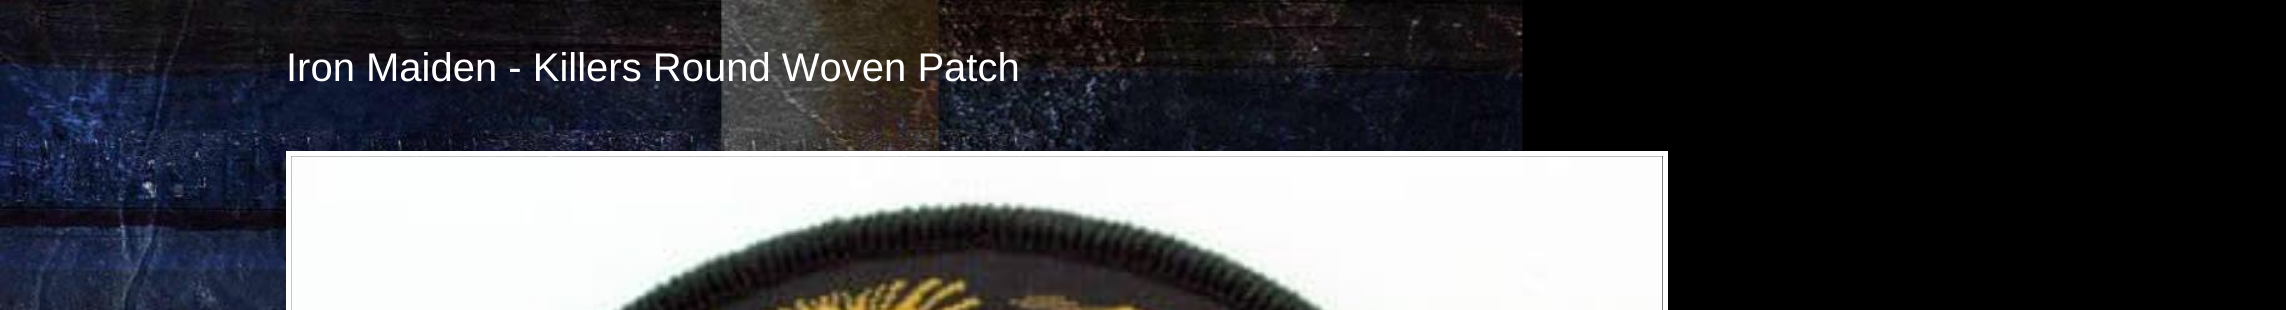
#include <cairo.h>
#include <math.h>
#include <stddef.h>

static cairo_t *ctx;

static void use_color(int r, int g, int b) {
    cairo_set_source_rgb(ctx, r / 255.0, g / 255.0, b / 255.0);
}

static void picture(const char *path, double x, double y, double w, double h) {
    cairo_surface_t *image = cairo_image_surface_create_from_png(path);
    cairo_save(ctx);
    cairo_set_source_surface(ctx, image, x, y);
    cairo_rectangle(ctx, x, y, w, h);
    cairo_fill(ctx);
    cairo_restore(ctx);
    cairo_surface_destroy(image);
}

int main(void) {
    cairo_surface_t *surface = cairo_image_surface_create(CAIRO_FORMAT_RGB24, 2286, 310);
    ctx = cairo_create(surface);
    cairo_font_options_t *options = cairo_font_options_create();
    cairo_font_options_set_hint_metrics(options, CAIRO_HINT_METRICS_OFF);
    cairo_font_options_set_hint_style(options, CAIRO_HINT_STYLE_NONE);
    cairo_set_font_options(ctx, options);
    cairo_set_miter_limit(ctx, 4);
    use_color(0, 0, 0);
    cairo_paint(ctx);
    picture("img1.png", 0, 0, 1523, 310);
    cairo_select_font_face(ctx, "Liberation Sans", CAIRO_FONT_SLANT_NORMAL, CAIRO_FONT_WEIGHT_NORMAL);
    cairo_set_font_size(ctx, 40);
    use_color(255, 255, 255);
    cairo_move_to(ctx, 286, 81);
    cairo_show_text(ctx, "Iron Maiden - Killers Round Woven Patch");
    cairo_rectangle(ctx, 288.5, 153.5, 1377, 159);
    cairo_set_line_width(ctx, 5);
    cairo_stroke(ctx);
    picture("img2.png", 291, 156, 1372, 154);
    cairo_surface_write_to_png(surface, "result.png");
    cairo_font_options_destroy(options);
    cairo_destroy(ctx);
    cairo_surface_destroy(surface);
    return 0;
}
